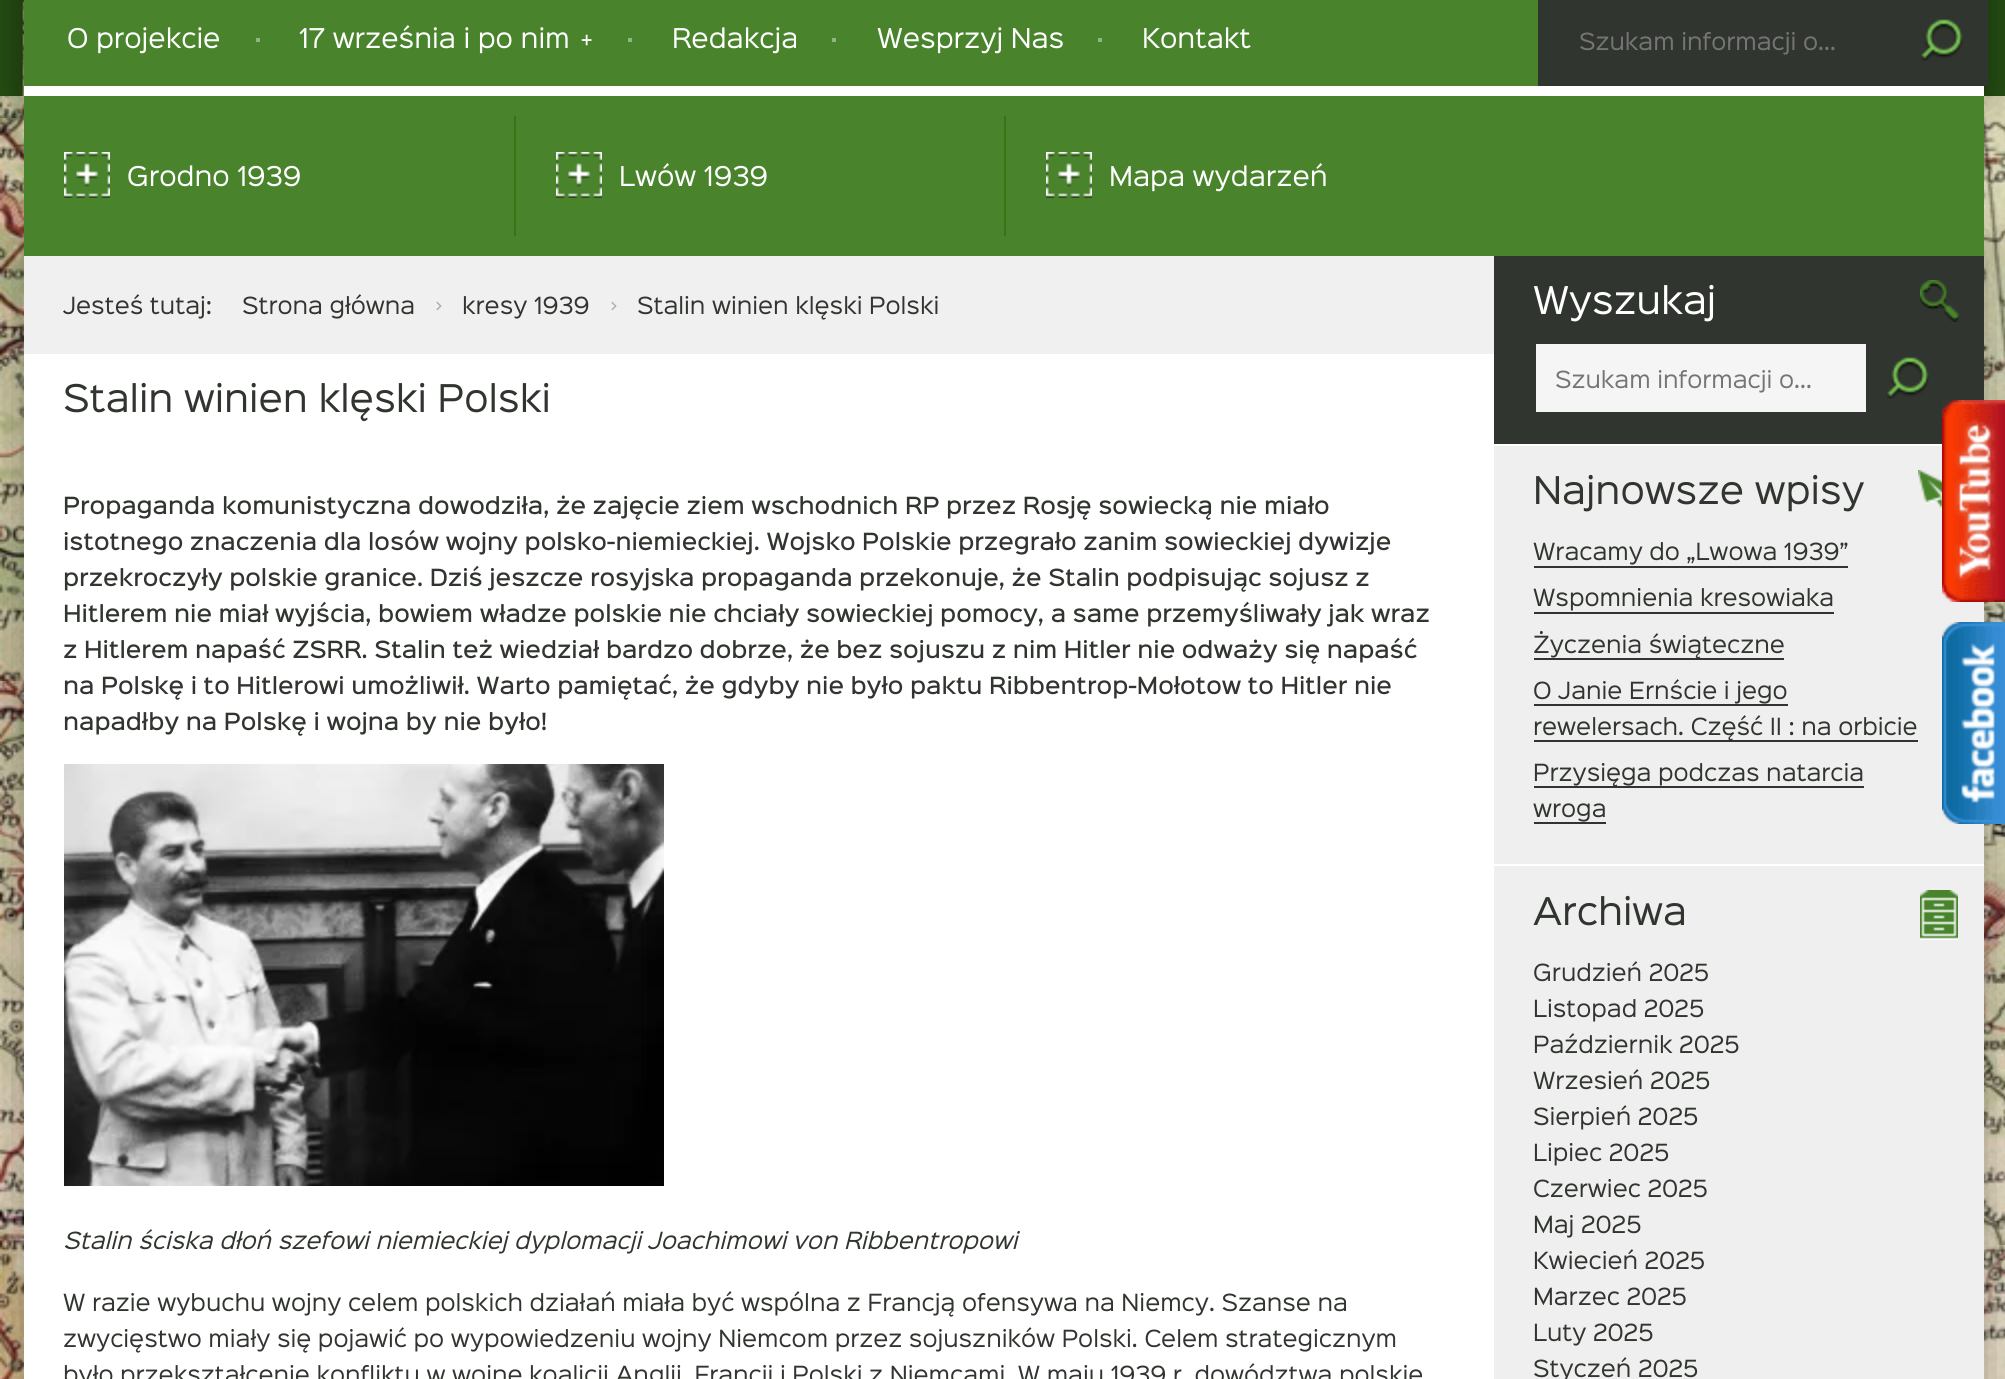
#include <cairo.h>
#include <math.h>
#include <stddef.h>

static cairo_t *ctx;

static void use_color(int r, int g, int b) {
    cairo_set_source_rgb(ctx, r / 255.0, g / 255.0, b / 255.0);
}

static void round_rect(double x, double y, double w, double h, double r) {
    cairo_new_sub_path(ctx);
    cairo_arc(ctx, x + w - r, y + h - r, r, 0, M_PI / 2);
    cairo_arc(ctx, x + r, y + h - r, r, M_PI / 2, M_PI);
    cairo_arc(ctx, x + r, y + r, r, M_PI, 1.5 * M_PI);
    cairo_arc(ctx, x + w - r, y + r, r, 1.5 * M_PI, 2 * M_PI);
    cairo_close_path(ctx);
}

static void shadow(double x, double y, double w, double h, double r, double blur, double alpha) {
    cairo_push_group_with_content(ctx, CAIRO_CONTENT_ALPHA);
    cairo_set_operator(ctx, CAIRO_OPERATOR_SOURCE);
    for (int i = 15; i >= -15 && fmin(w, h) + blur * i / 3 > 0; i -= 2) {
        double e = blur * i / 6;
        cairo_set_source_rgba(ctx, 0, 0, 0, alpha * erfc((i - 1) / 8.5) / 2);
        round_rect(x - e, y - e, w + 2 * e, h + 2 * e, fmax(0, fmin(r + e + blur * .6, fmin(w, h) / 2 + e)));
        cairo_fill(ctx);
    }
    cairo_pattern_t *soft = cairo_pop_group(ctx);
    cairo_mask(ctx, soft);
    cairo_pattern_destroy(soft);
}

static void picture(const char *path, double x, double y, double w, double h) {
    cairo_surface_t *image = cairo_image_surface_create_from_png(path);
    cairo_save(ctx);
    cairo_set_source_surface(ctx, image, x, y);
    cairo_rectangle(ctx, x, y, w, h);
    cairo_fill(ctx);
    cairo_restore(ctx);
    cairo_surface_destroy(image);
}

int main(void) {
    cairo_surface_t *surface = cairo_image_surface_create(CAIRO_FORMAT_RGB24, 2005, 1379);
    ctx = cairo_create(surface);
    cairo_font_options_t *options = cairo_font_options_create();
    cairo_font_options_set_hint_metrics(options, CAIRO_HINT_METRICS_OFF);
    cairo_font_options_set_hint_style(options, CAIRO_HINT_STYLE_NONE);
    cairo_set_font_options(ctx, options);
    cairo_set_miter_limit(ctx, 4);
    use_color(255, 255, 255);
    cairo_paint(ctx);
    picture("img1.png", 0, 0, 2005, 1379);
    picture("img2.png", 0, 0, 2005, 96);
    use_color(0, 0, 0);
    shadow(24, -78, 1960, 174, 0, 26, 0.33);
    use_color(255, 255, 255);
    cairo_rectangle(ctx, 24, 86, 1960, 10);
    cairo_fill(ctx);
    use_color(73, 132, 45);
    cairo_rectangle(ctx, 24, 0, 1514, 86);
    cairo_fill(ctx);
    cairo_select_font_face(ctx, "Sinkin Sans", CAIRO_FONT_SLANT_NORMAL, CAIRO_FONT_WEIGHT_NORMAL);
    cairo_set_font_size(ctx, 30);
    use_color(255, 255, 255);
    cairo_move_to(ctx, 67, 48);
    cairo_show_text(ctx, "O projekcie");
    use_color(145, 181, 128);
    cairo_rectangle(ctx, 256, 38, 4, 4);
    cairo_fill(ctx);
    use_color(255, 255, 255);
    cairo_move_to(ctx, 299, 48);
    cairo_show_text(ctx, "17 września i po nim");
    cairo_set_font_size(ctx, 24);
    cairo_move_to(ctx, 580, 48);
    cairo_show_text(ctx, "+");
    use_color(145, 181, 128);
    cairo_rectangle(ctx, 628, 38, 4, 4);
    cairo_fill(ctx);
    cairo_set_font_size(ctx, 30);
    use_color(255, 255, 255);
    cairo_move_to(ctx, 672, 48);
    cairo_show_text(ctx, "Redakcja");
    use_color(145, 181, 128);
    cairo_rectangle(ctx, 832, 38, 4, 4);
    cairo_fill(ctx);
    use_color(255, 255, 255);
    cairo_move_to(ctx, 877, 48);
    cairo_show_text(ctx, "Wesprzyj Nas");
    use_color(145, 181, 128);
    cairo_rectangle(ctx, 1098, 38, 4, 4);
    cairo_fill(ctx);
    use_color(255, 255, 255);
    cairo_move_to(ctx, 1142, 48);
    cairo_show_text(ctx, "Kontakt");
    use_color(49, 53, 47);
    cairo_rectangle(ctx, 1538, 0, 450, 86);
    cairo_fill(ctx);
    cairo_set_font_size(ctx, 26.02);
    use_color(117, 117, 117);
    cairo_move_to(ctx, 1579, 50);
    cairo_show_text(ctx, "Szukam informacji o...");
    picture("img3.png", 1920, 19, 43, 42);
    use_color(0, 0, 0);
    shadow(24, 246, 1960, 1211, 0, 26, 0.33);
    use_color(73, 132, 45);
    cairo_rectangle(ctx, 24, 96, 1960, 160);
    cairo_fill(ctx);
    picture("img4.png", 64, 152, 46, 46);
    cairo_set_font_size(ctx, 30);
    use_color(255, 255, 255);
    cairo_move_to(ctx, 127, 186);
    cairo_show_text(ctx, "Grodno 1939");
    use_color(51, 118, 19);
    cairo_rectangle(ctx, 514, 116, 2, 120);
    cairo_fill(ctx);
    picture("img4.png", 556, 152, 46, 46);
    use_color(255, 255, 255);
    cairo_move_to(ctx, 619, 186);
    cairo_show_text(ctx, "Lwów 1939");
    use_color(51, 118, 19);
    cairo_rectangle(ctx, 1004, 116, 2, 120);
    cairo_fill(ctx);
    picture("img5.png", 1046, 152, 46, 46);
    use_color(255, 255, 255);
    cairo_move_to(ctx, 1109, 186);
    cairo_show_text(ctx, "Mapa wydarzeń");
    cairo_rectangle(ctx, 24, 354, 1960, 1025);
    cairo_fill(ctx);
    use_color(240, 240, 240);
    cairo_rectangle(ctx, 24, 256, 1470, 98);
    cairo_fill(ctx);
    cairo_set_font_size(ctx, 26.02);
    use_color(49, 53, 47);
    cairo_move_to(ctx, 63, 314);
    cairo_show_text(ctx, "Jesteś tutaj:");
    cairo_move_to(ctx, 242, 314);
    cairo_show_text(ctx, "Strona główna");
    cairo_set_font_size(ctx, 18);
    use_color(170, 170, 170);
    cairo_move_to(ctx, 435, 312);
    cairo_show_text(ctx, ">");
    cairo_set_font_size(ctx, 26.02);
    use_color(49, 53, 47);
    cairo_move_to(ctx, 462, 314);
    cairo_show_text(ctx, "kresy 1939");
    cairo_set_font_size(ctx, 18);
    use_color(170, 170, 170);
    cairo_move_to(ctx, 610, 312);
    cairo_show_text(ctx, ">");
    cairo_set_font_size(ctx, 26.02);
    use_color(49, 53, 47);
    cairo_move_to(ctx, 637, 314);
    cairo_show_text(ctx, "Stalin winien klęski Polski");
    cairo_set_font_size(ctx, 42);
    cairo_move_to(ctx, 63, 412);
    cairo_show_text(ctx, "Stalin winien klęski Polski");
    cairo_select_font_face(ctx, "Sinkin Sans Medium", CAIRO_FONT_SLANT_NORMAL, CAIRO_FONT_WEIGHT_NORMAL);
    cairo_set_font_size(ctx, 26.02);
    cairo_move_to(ctx, 63, 514);
    cairo_show_text(ctx, "Propaganda komunistyczna dowodziła, że zajęcie ziem wschodnich RP przez Rosję sowiecką nie miało");
    cairo_move_to(ctx, 63, 550);
    cairo_show_text(ctx, "istotnego znaczenia dla losów wojny polsko-niemieckiej. Wojsko Polskie przegrało zanim sowieckiej dywizje");
    cairo_move_to(ctx, 63, 586);
    cairo_show_text(ctx, "przekroczyły polskie granice. Dziś jeszcze rosyjska propaganda przekonuje, że Stalin podpisując sojusz z");
    cairo_move_to(ctx, 63, 622);
    cairo_show_text(ctx, "Hitlerem nie miał wyjścia, bowiem władze polskie nie chciały sowieckiej pomocy, a same przemyśliwały jak wraz");
    cairo_move_to(ctx, 63, 658);
    cairo_show_text(ctx, "z Hitlerem napaść ZSRR. Stalin też wiedział bardzo dobrze, że bez sojuszu z nim Hitler nie odważy się napaść");
    cairo_move_to(ctx, 63, 694);
    cairo_show_text(ctx, "na Polskę i to Hitlerowi umożliwił. Warto pamiętać, że gdyby nie było paktu Ribbentrop-Mołotow to Hitler nie");
    cairo_move_to(ctx, 63, 730);
    cairo_show_text(ctx, "napadłby na Polskę i wojna by nie było!");
    picture("img6.png", 64, 764, 600, 422);
    cairo_select_font_face(ctx, "Sinkin Sans", CAIRO_FONT_SLANT_ITALIC, CAIRO_FONT_WEIGHT_NORMAL);
    cairo_move_to(ctx, 63, 1249);
    cairo_show_text(ctx, "Stalin ściska dłoń szefowi niemieckiej dyplomacji Joachimowi von Ribbentropowi");
    cairo_select_font_face(ctx, "Sinkin Sans", CAIRO_FONT_SLANT_NORMAL, CAIRO_FONT_WEIGHT_NORMAL);
    cairo_move_to(ctx, 63, 1311);
    cairo_show_text(ctx, "W razie wybuchu wojny celem polskich działań miała być wspólna z Francją ofensywa na Niemcy. Szanse na");
    cairo_move_to(ctx, 63, 1347);
    cairo_show_text(ctx, "zwycięstwo miały się pojawić po wypowiedzeniu wojny Niemcom przez sojuszników Polski. Celem strategicznym");
    cairo_move_to(ctx, 63, 1383);
    cairo_show_text(ctx, "było przekształcenie konfliktu w wojnę koalicji Anglii, Francji i Polski z Niemcami. W maju 1939 r. dowództwa polskie");
    cairo_rectangle(ctx, 1494, 256, 490, 188);
    cairo_fill(ctx);
    cairo_set_font_size(ctx, 42);
    use_color(255, 255, 255);
    cairo_move_to(ctx, 1533, 314);
    cairo_show_text(ctx, "Wyszukaj");
    picture("img7.png", 1920, 280, 40, 42);
    use_color(245, 245, 245);
    cairo_rectangle(ctx, 1536, 344, 330, 68);
    cairo_fill(ctx);
    cairo_set_font_size(ctx, 26.02);
    use_color(117, 117, 117);
    cairo_move_to(ctx, 1555, 388);
    cairo_show_text(ctx, "Szukam informacji o...");
    picture("img3.png", 1886, 357, 43, 42);
    use_color(239, 239, 239);
    cairo_rectangle(ctx, 1494, 446, 490, 418);
    cairo_fill(ctx);
    cairo_set_font_size(ctx, 42);
    use_color(49, 53, 47);
    cairo_move_to(ctx, 1533, 504);
    cairo_show_text(ctx, "Najnowsze wpisy");
    picture("img8.png", 1918, 470, 24, 39);
    cairo_set_font_size(ctx, 26.02);
    cairo_move_to(ctx, 1533, 560);
    cairo_show_text(ctx, "Wracamy do „Lwowa 1939”");
    cairo_rectangle(ctx, 1534, 566, 314, 2);
    cairo_fill(ctx);
    cairo_move_to(ctx, 1533, 606);
    cairo_show_text(ctx, "Wspomnienia kresowiaka");
    cairo_rectangle(ctx, 1534, 612, 300, 2);
    cairo_fill(ctx);
    cairo_rectangle(ctx, 1534, 658, 250, 2);
    cairo_fill(ctx);
    cairo_move_to(ctx, 1533, 653);
    cairo_show_text(ctx, "Życzenia świąteczne");
    cairo_move_to(ctx, 1533, 699);
    cairo_show_text(ctx, "O Janie Ernście i jego");
    cairo_rectangle(ctx, 1534, 704, 254, 2);
    cairo_fill(ctx);
    cairo_rectangle(ctx, 1534, 740, 384, 2);
    cairo_fill(ctx);
    cairo_move_to(ctx, 1533, 735);
    cairo_show_text(ctx, "rewelersach. Część II : na orbicie");
    cairo_rectangle(ctx, 1534, 786, 330, 2);
    cairo_fill(ctx);
    cairo_move_to(ctx, 1533, 781);
    cairo_show_text(ctx, "Przysięga podczas natarcia");
    cairo_move_to(ctx, 1533, 817);
    cairo_show_text(ctx, "wroga");
    cairo_rectangle(ctx, 1534, 822, 72, 2);
    cairo_fill(ctx);
    use_color(239, 239, 239);
    cairo_rectangle(ctx, 1494, 866, 490, 513);
    cairo_fill(ctx);
    cairo_set_font_size(ctx, 42);
    use_color(49, 53, 47);
    cairo_move_to(ctx, 1533, 925);
    cairo_show_text(ctx, "Archiwa");
    picture("img9.png", 1920, 890, 38, 50);
    cairo_set_font_size(ctx, 26.02);
    cairo_move_to(ctx, 1533, 981);
    cairo_show_text(ctx, "Grudzień 2025");
    cairo_move_to(ctx, 1533, 1017);
    cairo_show_text(ctx, "Listopad 2025");
    cairo_move_to(ctx, 1533, 1053);
    cairo_show_text(ctx, "Październik 2025");
    cairo_move_to(ctx, 1533, 1089);
    cairo_show_text(ctx, "Wrzesień 2025");
    cairo_move_to(ctx, 1533, 1125);
    cairo_show_text(ctx, "Sierpień 2025");
    cairo_move_to(ctx, 1533, 1161);
    cairo_show_text(ctx, "Lipiec 2025");
    cairo_move_to(ctx, 1533, 1197);
    cairo_show_text(ctx, "Czerwiec 2025");
    cairo_move_to(ctx, 1533, 1233);
    cairo_show_text(ctx, "Maj 2025");
    cairo_move_to(ctx, 1533, 1269);
    cairo_show_text(ctx, "Kwiecień 2025");
    cairo_move_to(ctx, 1533, 1305);
    cairo_show_text(ctx, "Marzec 2025");
    cairo_move_to(ctx, 1533, 1341);
    cairo_show_text(ctx, "Luty 2025");
    cairo_move_to(ctx, 1533, 1377);
    cairo_show_text(ctx, "Styczeń 2025");
    picture("img10.png", 1942, 400, 63, 202);
    picture("img11.png", 1942, 622, 63, 202);
    cairo_surface_write_to_png(surface, "result.png");
    cairo_font_options_destroy(options);
    cairo_destroy(ctx);
    cairo_surface_destroy(surface);
    return 0;
}
